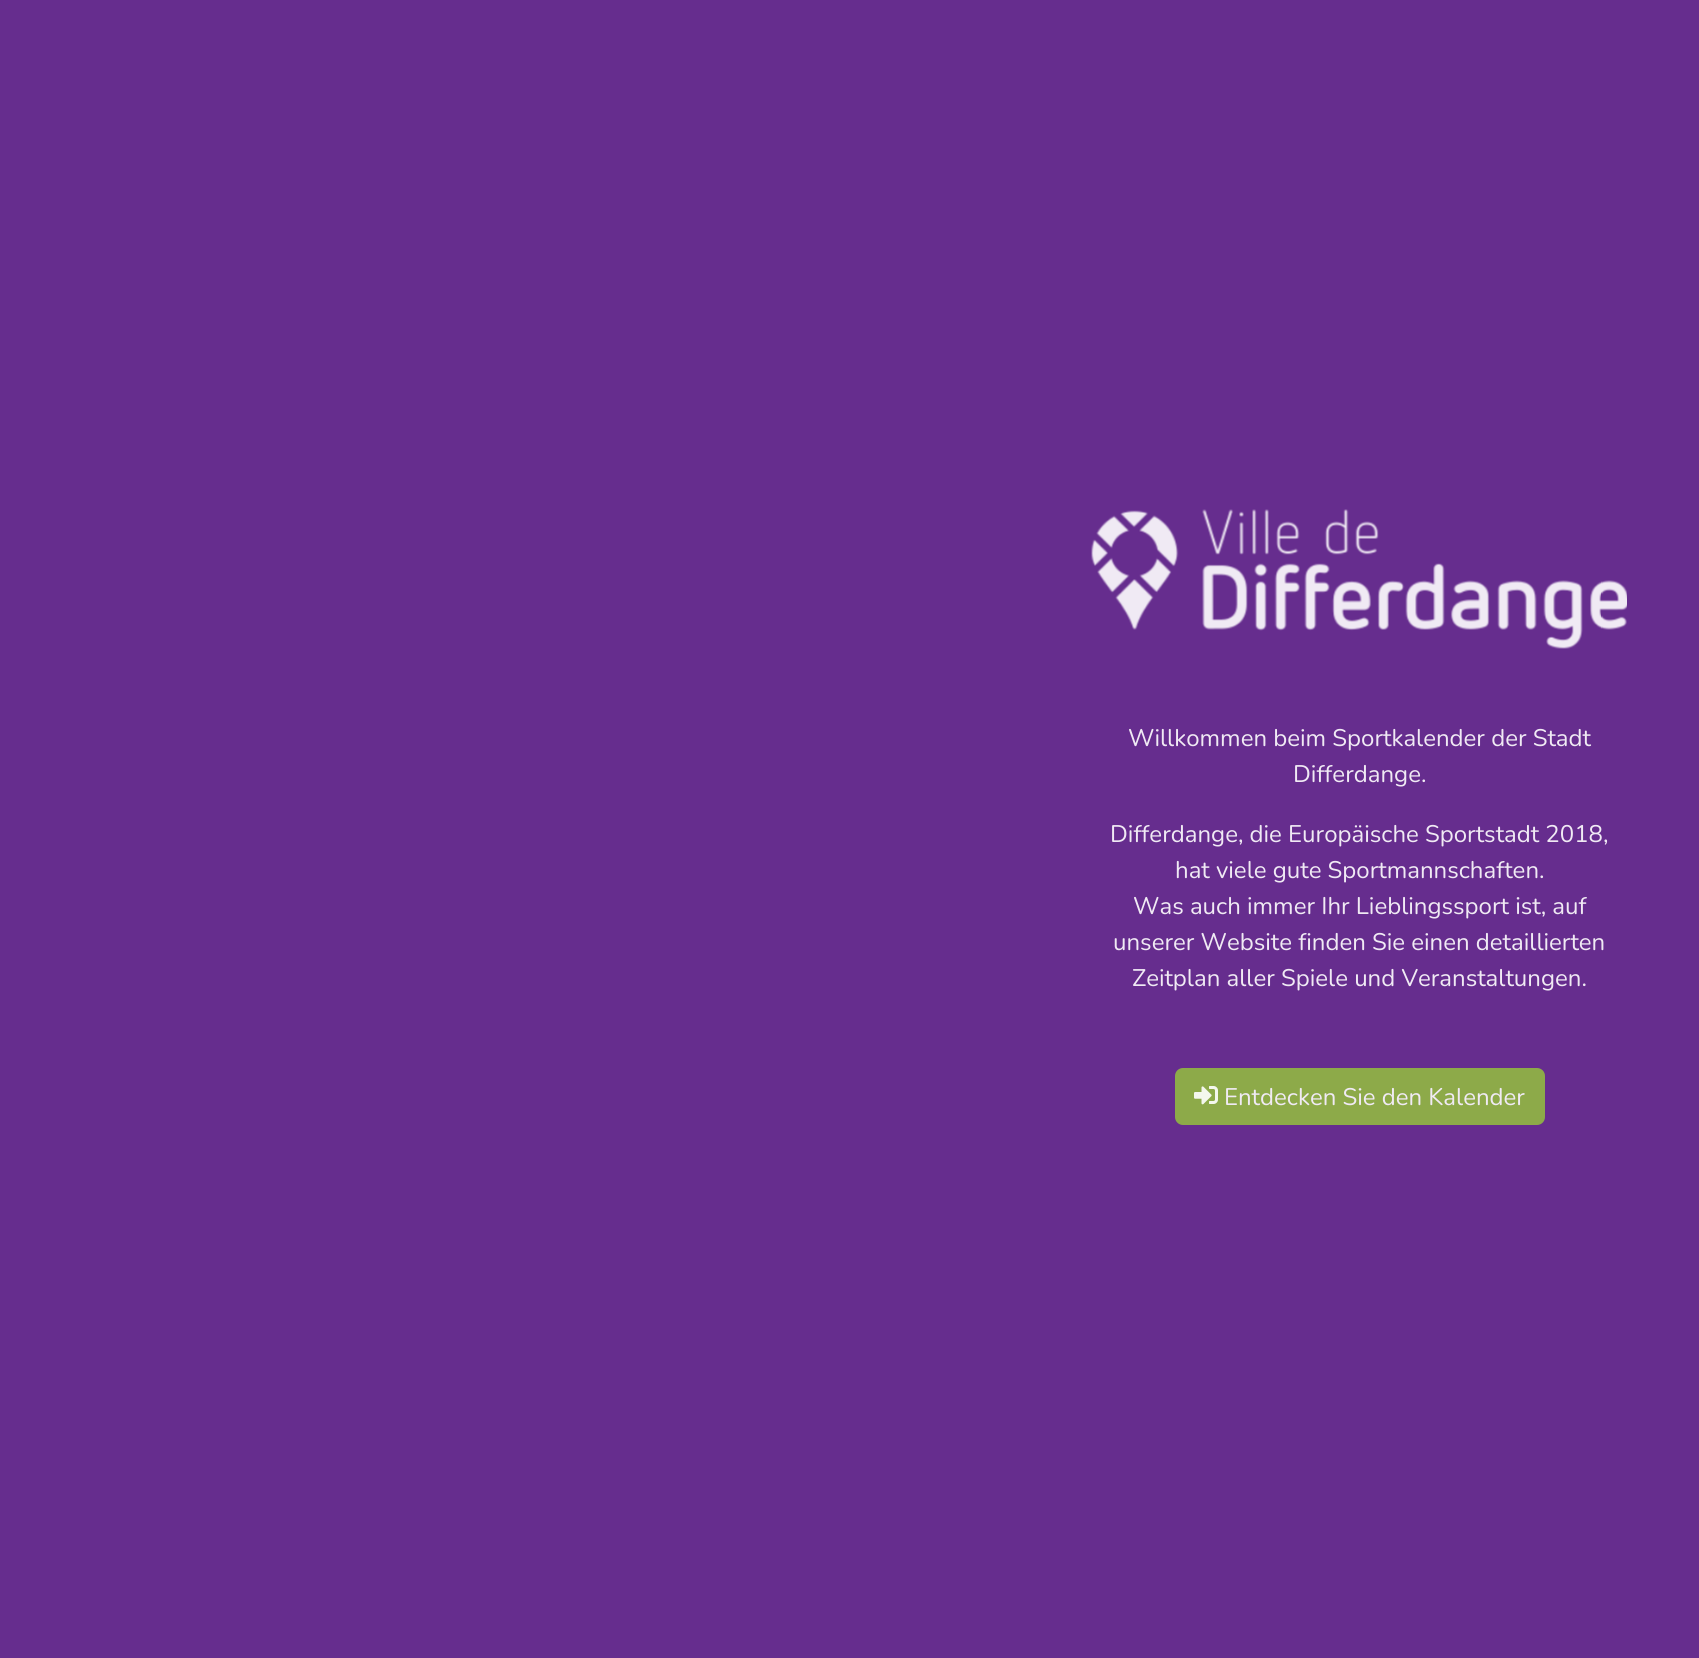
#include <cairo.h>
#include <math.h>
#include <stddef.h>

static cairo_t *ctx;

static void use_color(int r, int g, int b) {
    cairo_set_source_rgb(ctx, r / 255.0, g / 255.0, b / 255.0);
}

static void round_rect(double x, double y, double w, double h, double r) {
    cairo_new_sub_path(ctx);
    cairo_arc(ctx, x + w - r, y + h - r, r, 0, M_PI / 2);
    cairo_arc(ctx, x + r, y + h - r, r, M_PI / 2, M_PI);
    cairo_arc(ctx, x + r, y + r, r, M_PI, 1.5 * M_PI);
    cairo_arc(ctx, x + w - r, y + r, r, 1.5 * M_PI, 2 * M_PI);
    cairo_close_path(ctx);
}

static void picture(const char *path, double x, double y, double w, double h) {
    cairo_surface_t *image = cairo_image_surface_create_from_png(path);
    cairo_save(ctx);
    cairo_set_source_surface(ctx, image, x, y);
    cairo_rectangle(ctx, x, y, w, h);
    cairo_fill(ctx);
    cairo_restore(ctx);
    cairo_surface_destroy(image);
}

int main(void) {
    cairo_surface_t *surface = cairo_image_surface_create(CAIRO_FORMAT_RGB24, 1699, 1658);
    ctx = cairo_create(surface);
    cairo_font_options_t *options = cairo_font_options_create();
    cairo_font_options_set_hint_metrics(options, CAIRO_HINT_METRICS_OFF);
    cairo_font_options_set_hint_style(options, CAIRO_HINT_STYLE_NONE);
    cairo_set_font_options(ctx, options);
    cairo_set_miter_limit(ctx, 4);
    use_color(102, 45, 142);
    cairo_paint(ctx);
    picture("img1.png", 1091, 509, 536, 140);
    cairo_select_font_face(ctx, "Nunito", CAIRO_FONT_SLANT_NORMAL, CAIRO_FONT_WEIGHT_NORMAL);
    cairo_set_font_size(ctx, 24);
    use_color(240, 234, 244);
    cairo_move_to(ctx, 1128, 746);
    cairo_show_text(ctx, "Willkommen beim Sportkalender der Stadt");
    cairo_move_to(ctx, 1293, 782);
    cairo_show_text(ctx, "Differdange.");
    cairo_move_to(ctx, 1110, 842);
    cairo_show_text(ctx, "Differdange, die Europäische Sportstadt 2018,");
    cairo_move_to(ctx, 1175, 878);
    cairo_show_text(ctx, "hat viele gute Sportmannschaften.");
    cairo_move_to(ctx, 1133, 914);
    cairo_show_text(ctx, "Was auch immer Ihr Lieblingssport ist, auf");
    cairo_move_to(ctx, 1113, 950);
    cairo_show_text(ctx, "unserer Website finden Sie einen detaillierten");
    cairo_move_to(ctx, 1132, 986);
    cairo_show_text(ctx, "Zeitplan aller Spiele und Veranstaltungen.");
    use_color(141, 170, 73);
    round_rect(1176, 1069, 368, 55, 7);
    cairo_fill_preserve(ctx);
    cairo_stroke(ctx);
    picture("img2.png", 1194, 1086, 24, 19);
    use_color(240, 234, 244);
    cairo_move_to(ctx, 1224, 1105);
    cairo_show_text(ctx, "Entdecken Sie den Kalender");
    cairo_surface_write_to_png(surface, "result.png");
    cairo_font_options_destroy(options);
    cairo_destroy(ctx);
    cairo_surface_destroy(surface);
    return 0;
}
